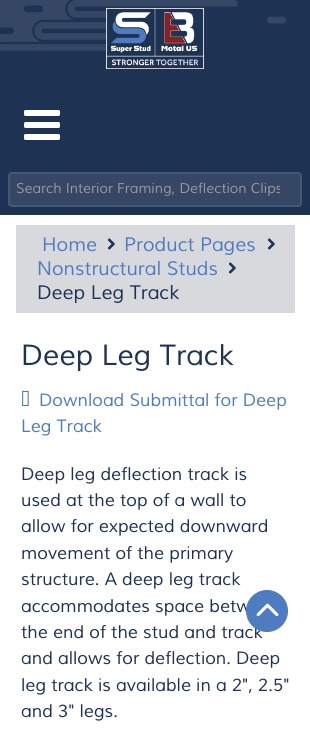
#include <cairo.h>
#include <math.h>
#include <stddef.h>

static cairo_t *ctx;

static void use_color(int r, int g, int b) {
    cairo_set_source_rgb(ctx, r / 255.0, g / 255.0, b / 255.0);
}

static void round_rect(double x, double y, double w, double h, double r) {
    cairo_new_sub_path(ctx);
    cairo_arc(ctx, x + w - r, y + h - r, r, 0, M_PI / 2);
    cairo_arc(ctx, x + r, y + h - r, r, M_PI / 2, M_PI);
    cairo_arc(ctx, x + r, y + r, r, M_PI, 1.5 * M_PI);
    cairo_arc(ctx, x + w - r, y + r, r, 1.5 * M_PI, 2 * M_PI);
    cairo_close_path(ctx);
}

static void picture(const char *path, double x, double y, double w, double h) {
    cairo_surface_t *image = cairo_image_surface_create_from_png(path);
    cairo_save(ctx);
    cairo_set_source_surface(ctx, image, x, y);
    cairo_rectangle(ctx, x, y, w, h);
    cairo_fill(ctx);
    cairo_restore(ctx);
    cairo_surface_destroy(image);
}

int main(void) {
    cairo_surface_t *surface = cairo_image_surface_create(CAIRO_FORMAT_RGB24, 310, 732);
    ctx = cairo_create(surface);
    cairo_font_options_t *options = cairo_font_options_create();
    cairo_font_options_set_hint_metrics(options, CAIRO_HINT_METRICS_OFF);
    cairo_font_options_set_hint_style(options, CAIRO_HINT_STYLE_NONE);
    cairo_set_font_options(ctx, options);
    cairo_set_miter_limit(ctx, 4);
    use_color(255, 255, 255);
    cairo_paint(ctx);
    use_color(30, 50, 83);
    cairo_rectangle(ctx, 0, 0, 310, 215);
    cairo_fill(ctx);
    picture("img3.png", 0, 0, 286, 51);
    picture("img1.png", 106, 8, 98, 61);
    picture("img2.png", 24, 110, 36, 30);
    use_color(53, 71, 101);
    round_rect(8, 172, 294, 35, 4);
    cairo_fill(ctx);
    round_rect(9, 173, 292, 33, 3);
    cairo_set_source_rgba(ctx, 0.408, 0.49, 0.6, 0.3);
    cairo_stroke(ctx);
    cairo_save(ctx);
    cairo_rectangle(ctx, 16, 180, 264, 18);
    cairo_clip(ctx);
    cairo_select_font_face(ctx, "Muli", CAIRO_FONT_SLANT_ITALIC, CAIRO_FONT_WEIGHT_NORMAL);
    cairo_set_font_size(ctx, 14);
    use_color(153, 153, 153);
    cairo_move_to(ctx, 16, 193);
    cairo_show_text(ctx, "Search Interior Framing, Deflection Clips");
    cairo_restore(ctx);
    use_color(216, 217, 220);
    cairo_rectangle(ctx, 16, 225, 279, 88);
    cairo_fill(ctx);
    cairo_select_font_face(ctx, "Muli", CAIRO_FONT_SLANT_ITALIC, CAIRO_FONT_WEIGHT_NORMAL);
    cairo_set_font_size(ctx, 19.25);
    use_color(79, 124, 192);
    cairo_move_to(ctx, 42, 251);
    cairo_show_text(ctx, "Home");
    picture("img4.png", 107, 238, 8, 12);
    cairo_move_to(ctx, 124, 251);
    cairo_show_text(ctx, "Product Pages");
    picture("img4.png", 267, 238, 8, 12);
    cairo_move_to(ctx, 37, 275);
    cairo_show_text(ctx, "Nonstructural Studs");
    picture("img4.png", 228, 262, 8, 12);
    use_color(30, 50, 83);
    cairo_move_to(ctx, 37, 299);
    cairo_show_text(ctx, "Deep Leg Track");
    cairo_set_font_size(ctx, 28.75);
    cairo_move_to(ctx, 21, 365);
    cairo_show_text(ctx, "Deep Leg Track");
    picture("img5.png", 22, 390, 7, 16);
    cairo_set_font_size(ctx, 17.6);
    use_color(79, 124, 192);
    cairo_move_to(ctx, 39, 406);
    cairo_show_text(ctx, "Download Submittal for Deep");
    cairo_move_to(ctx, 21, 432);
    cairo_show_text(ctx, "Leg Track");
    use_color(30, 50, 83);
    cairo_move_to(ctx, 21, 480);
    cairo_show_text(ctx, "Deep leg deflection track is");
    cairo_move_to(ctx, 21, 506);
    cairo_show_text(ctx, "used at the top of a wall to");
    cairo_move_to(ctx, 21, 532);
    cairo_show_text(ctx, "allow for expected downward");
    cairo_move_to(ctx, 21, 559);
    cairo_show_text(ctx, "movement of the primary");
    cairo_move_to(ctx, 21, 585);
    cairo_show_text(ctx, "structure. A deep leg track");
    cairo_move_to(ctx, 21, 612);
    cairo_show_text(ctx, "accommodates space betw");
    cairo_move_to(ctx, 21, 638);
    cairo_show_text(ctx, "the end of the stud and track");
    cairo_move_to(ctx, 21, 664);
    cairo_show_text(ctx, "and allows for deflection. Deep");
    cairo_move_to(ctx, 21, 691);
    cairo_show_text(ctx, "leg track is available in a 2\", 2.5\"");
    cairo_move_to(ctx, 21, 717);
    cairo_show_text(ctx, "and 3\" legs.");
    use_color(79, 124, 192);
    cairo_new_path(ctx);
    cairo_arc(ctx, 267, 611, 20.5, 0, 2 * M_PI);
    cairo_fill_preserve(ctx);
    cairo_set_line_width(ctx, 1);
    cairo_stroke(ctx);
    picture("img6.png", 256, 603, 23, 14);
    cairo_surface_write_to_png(surface, "result.png");
    cairo_font_options_destroy(options);
    cairo_destroy(ctx);
    cairo_surface_destroy(surface);
    return 0;
}
